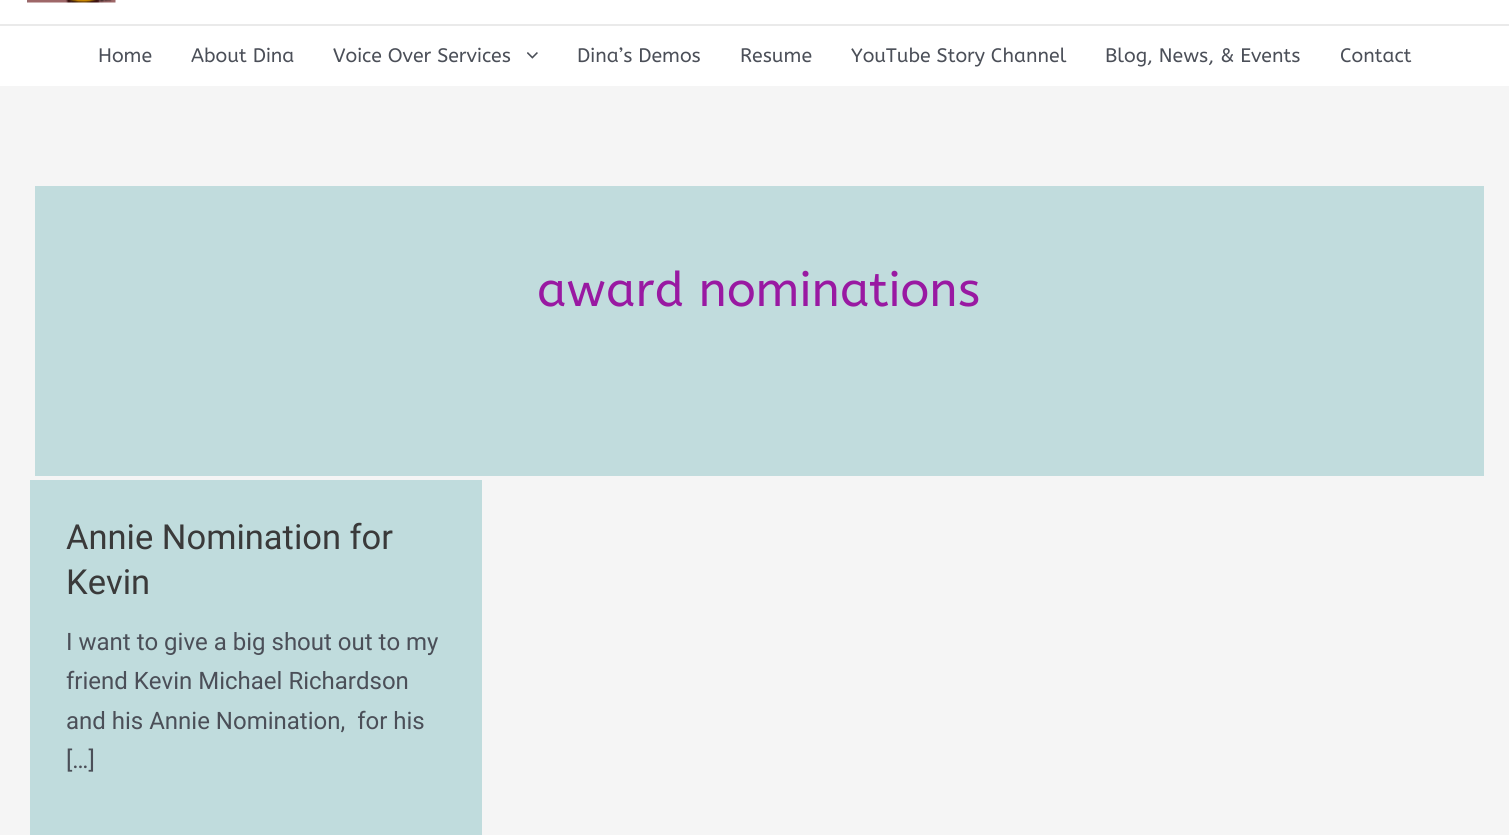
#include <cairo.h>
#include <math.h>
#include <stddef.h>

static cairo_t *ctx;

static void use_color(int r, int g, int b) {
    cairo_set_source_rgb(ctx, r / 255.0, g / 255.0, b / 255.0);
}

static void picture(const char *path, double x, double y, double w, double h) {
    cairo_surface_t *image = cairo_image_surface_create_from_png(path);
    cairo_save(ctx);
    cairo_set_source_surface(ctx, image, x, y);
    cairo_rectangle(ctx, x, y, w, h);
    cairo_fill(ctx);
    cairo_restore(ctx);
    cairo_surface_destroy(image);
}

int main(void) {
    cairo_surface_t *surface = cairo_image_surface_create(CAIRO_FORMAT_RGB24, 1509, 835);
    ctx = cairo_create(surface);
    cairo_font_options_t *options = cairo_font_options_create();
    cairo_font_options_set_hint_metrics(options, CAIRO_HINT_METRICS_OFF);
    cairo_font_options_set_hint_style(options, CAIRO_HINT_STYLE_NONE);
    cairo_set_font_options(ctx, options);
    cairo_set_miter_limit(ctx, 4);
    use_color(245, 245, 245);
    cairo_paint(ctx);
    use_color(255, 255, 255);
    cairo_rectangle(ctx, 0, 0, 1509, 24);
    cairo_fill(ctx);
    use_color(234, 234, 234);
    cairo_rectangle(ctx, 0, 24, 1509, 2);
    cairo_fill(ctx);
    picture("img1.png", 27, 0, 89, 3);
    use_color(255, 255, 255);
    cairo_rectangle(ctx, 0, 26, 1509, 60);
    cairo_fill(ctx);
    cairo_select_font_face(ctx, "ABeeZee", CAIRO_FONT_SLANT_NORMAL, CAIRO_FONT_WEIGHT_NORMAL);
    cairo_set_font_size(ctx, 19.5);
    use_color(75, 79, 88);
    cairo_move_to(ctx, 98, 62);
    cairo_show_text(ctx, "Home");
    cairo_move_to(ctx, 191, 62);
    cairo_show_text(ctx, "About Dina");
    cairo_move_to(ctx, 333, 62);
    cairo_show_text(ctx, "Voice Over Services");
    picture("img2.png", 527, 52, 11, 7);
    cairo_move_to(ctx, 577, 62);
    cairo_show_text(ctx, "Dina’s Demos");
    cairo_move_to(ctx, 740, 62);
    cairo_show_text(ctx, "Resume");
    cairo_move_to(ctx, 851, 62);
    cairo_show_text(ctx, "YouTube Story Channel");
    cairo_move_to(ctx, 1105, 62);
    cairo_show_text(ctx, "Blog, News, & Events");
    cairo_move_to(ctx, 1340, 62);
    cairo_show_text(ctx, "Contact");
    use_color(193, 220, 221);
    cairo_rectangle(ctx, 35, 186, 1449, 290);
    cairo_fill(ctx);
    cairo_set_font_size(ctx, 48);
    use_color(153, 25, 162);
    cairo_move_to(ctx, 537, 306);
    cairo_show_text(ctx, "award nominations");
    use_color(192, 220, 221);
    cairo_rectangle(ctx, 30, 480, 452, 355);
    cairo_fill(ctx);
    cairo_select_font_face(ctx, "Roboto", CAIRO_FONT_SLANT_NORMAL, CAIRO_FONT_WEIGHT_NORMAL);
    cairo_set_font_size(ctx, 34.5);
    use_color(58, 58, 58);
    cairo_move_to(ctx, 66, 549);
    cairo_show_text(ctx, "Annie Nomination for");
    cairo_move_to(ctx, 66, 594);
    cairo_show_text(ctx, "Kevin");
    cairo_set_font_size(ctx, 24);
    use_color(75, 79, 88);
    cairo_move_to(ctx, 66, 650);
    cairo_show_text(ctx, "I want to give a big shout out to my");
    cairo_move_to(ctx, 66, 689);
    cairo_show_text(ctx, "friend Kevin Michael Richardson");
    cairo_move_to(ctx, 66, 729);
    cairo_show_text(ctx, "and his Annie Nomination,  for his");
    cairo_move_to(ctx, 66, 768);
    cairo_show_text(ctx, "[…]");
    cairo_surface_write_to_png(surface, "result.png");
    cairo_font_options_destroy(options);
    cairo_destroy(ctx);
    cairo_surface_destroy(surface);
    return 0;
}
